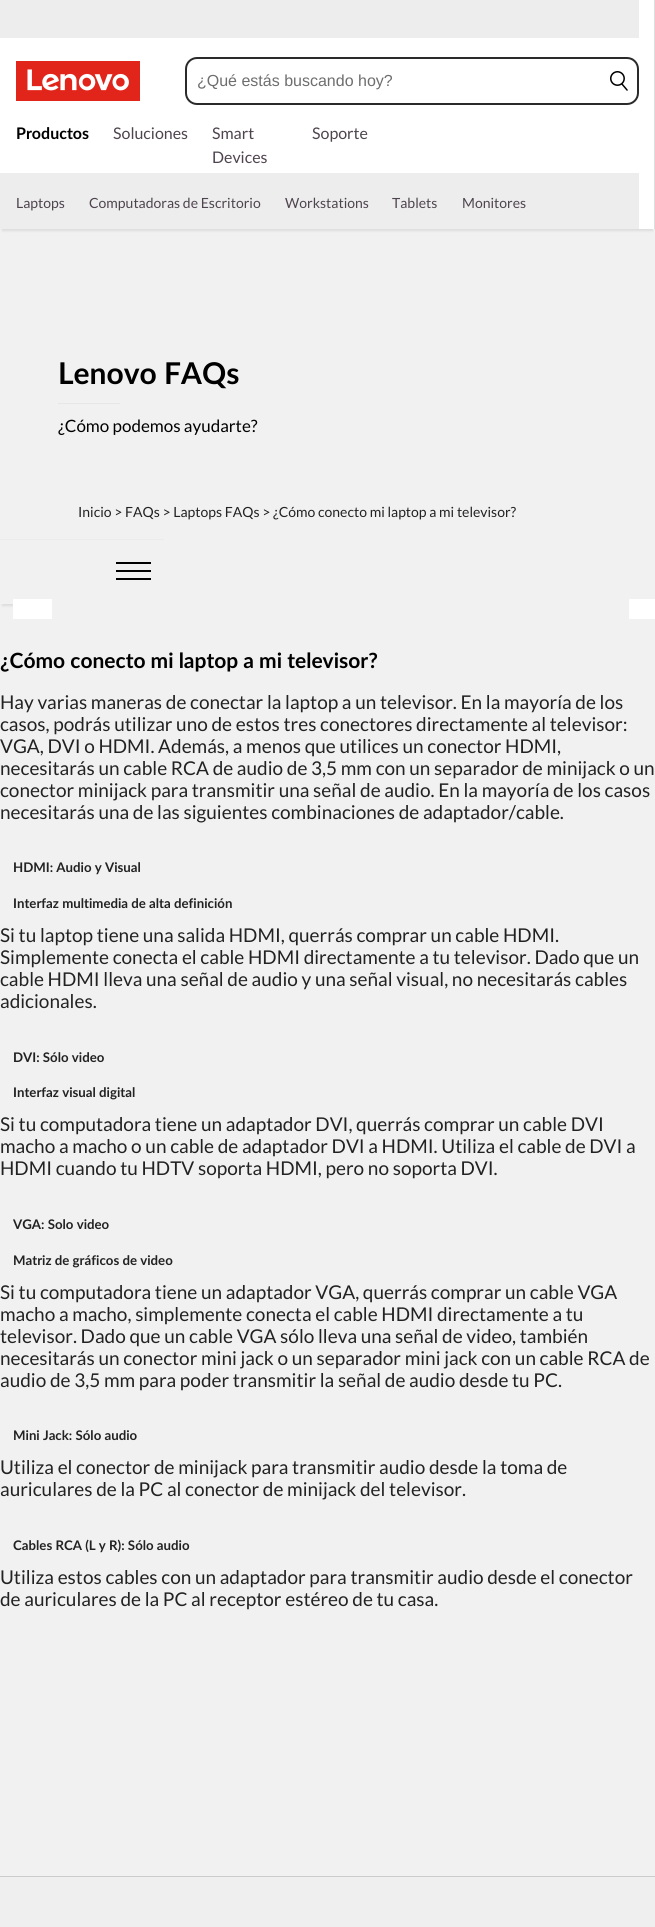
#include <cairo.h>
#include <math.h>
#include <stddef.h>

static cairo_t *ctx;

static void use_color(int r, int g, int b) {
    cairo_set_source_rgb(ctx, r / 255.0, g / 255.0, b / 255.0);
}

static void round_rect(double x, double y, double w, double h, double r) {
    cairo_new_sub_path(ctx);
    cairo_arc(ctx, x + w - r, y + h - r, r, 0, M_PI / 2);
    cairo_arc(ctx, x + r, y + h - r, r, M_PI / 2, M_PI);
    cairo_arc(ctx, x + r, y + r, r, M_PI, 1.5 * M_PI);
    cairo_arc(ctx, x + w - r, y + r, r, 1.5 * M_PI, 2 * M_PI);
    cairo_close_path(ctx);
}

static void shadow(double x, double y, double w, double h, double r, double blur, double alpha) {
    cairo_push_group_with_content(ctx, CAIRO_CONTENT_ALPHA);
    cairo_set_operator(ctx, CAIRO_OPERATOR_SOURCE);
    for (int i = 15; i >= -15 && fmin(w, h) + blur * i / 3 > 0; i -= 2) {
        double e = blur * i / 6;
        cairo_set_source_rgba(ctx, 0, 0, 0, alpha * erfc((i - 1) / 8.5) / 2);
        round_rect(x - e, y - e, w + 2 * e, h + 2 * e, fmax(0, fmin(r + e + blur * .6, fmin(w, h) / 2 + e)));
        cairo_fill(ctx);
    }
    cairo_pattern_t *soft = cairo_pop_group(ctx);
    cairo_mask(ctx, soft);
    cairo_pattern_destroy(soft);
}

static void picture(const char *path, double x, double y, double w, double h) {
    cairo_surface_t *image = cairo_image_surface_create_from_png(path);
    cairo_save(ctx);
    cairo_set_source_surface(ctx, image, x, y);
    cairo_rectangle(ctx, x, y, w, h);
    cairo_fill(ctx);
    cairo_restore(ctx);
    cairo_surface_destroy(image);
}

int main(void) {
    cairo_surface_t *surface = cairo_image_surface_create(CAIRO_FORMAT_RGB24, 655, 1927);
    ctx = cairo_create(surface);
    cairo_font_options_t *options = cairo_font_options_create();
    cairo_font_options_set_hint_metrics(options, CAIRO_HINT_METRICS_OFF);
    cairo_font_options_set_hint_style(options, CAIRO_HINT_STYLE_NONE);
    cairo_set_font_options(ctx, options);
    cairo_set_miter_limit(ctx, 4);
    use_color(255, 255, 255);
    cairo_paint(ctx);
    use_color(241, 241, 241);
    cairo_rectangle(ctx, 0, 229, 655, 1647);
    cairo_fill(ctx);
    cairo_save(ctx);
    cairo_rectangle(ctx, 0, 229, 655, 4);
    cairo_clip(ctx);
    use_color(221, 221, 221);
    shadow(2, 6, 651, 225, 0, 1, 1);
    cairo_restore(ctx);
    use_color(221, 221, 221);
    cairo_rectangle(ctx, 654, 0, 1, 229);
    cairo_fill(ctx);
    use_color(237, 237, 237);
    cairo_rectangle(ctx, 0, 0, 639, 38);
    cairo_fill(ctx);
    picture("img1.png", 16, 61, 124, 40);
    round_rect(186, 58, 452, 46, 11);
    use_color(42, 42, 42);
    cairo_stroke(ctx);
    cairo_select_font_face(ctx, "Liberation Sans", CAIRO_FONT_SLANT_NORMAL, CAIRO_FONT_WEIGHT_NORMAL);
    cairo_set_font_size(ctx, 16);
    use_color(111, 109, 110);
    cairo_move_to(ctx, 197, 86);
    cairo_show_text(ctx, "¿Qué estás buscando hoy?");
    picture("img2.png", 610, 71, 18, 20);
    cairo_select_font_face(ctx, "Lato", CAIRO_FONT_SLANT_NORMAL, CAIRO_FONT_WEIGHT_BOLD);
    use_color(0, 0, 0);
    cairo_move_to(ctx, 16, 139);
    cairo_show_text(ctx, "Productos");
    cairo_select_font_face(ctx, "Lato", CAIRO_FONT_SLANT_NORMAL, CAIRO_FONT_WEIGHT_NORMAL);
    use_color(78, 68, 78);
    cairo_move_to(ctx, 113, 139);
    cairo_show_text(ctx, "Soluciones");
    cairo_move_to(ctx, 212, 139);
    cairo_show_text(ctx, "Smart");
    cairo_move_to(ctx, 212, 163);
    cairo_show_text(ctx, "Devices");
    cairo_move_to(ctx, 312, 139);
    cairo_show_text(ctx, "Soporte");
    use_color(237, 237, 237);
    cairo_rectangle(ctx, 0, 173, 639, 56);
    cairo_fill(ctx);
    cairo_set_font_size(ctx, 14);
    use_color(78, 68, 78);
    cairo_move_to(ctx, 16, 208);
    cairo_show_text(ctx, "Laptops");
    cairo_move_to(ctx, 89, 208);
    cairo_show_text(ctx, "Computadoras de Escritorio");
    cairo_move_to(ctx, 285, 208);
    cairo_show_text(ctx, "Workstations");
    cairo_move_to(ctx, 392, 208);
    cairo_show_text(ctx, "Tablets");
    cairo_move_to(ctx, 462, 208);
    cairo_show_text(ctx, "Monitores");
    cairo_select_font_face(ctx, "Lato", CAIRO_FONT_SLANT_NORMAL, CAIRO_FONT_WEIGHT_BOLD);
    cairo_set_font_size(ctx, 30);
    use_color(0, 0, 0);
    cairo_move_to(ctx, 58, 384);
    cairo_show_text(ctx, "Lenovo FAQs");
    use_color(230, 230, 230);
    cairo_rectangle(ctx, 58, 403, 62, 1);
    cairo_fill(ctx);
    cairo_select_font_face(ctx, "Lato", CAIRO_FONT_SLANT_NORMAL, CAIRO_FONT_WEIGHT_NORMAL);
    cairo_set_font_size(ctx, 17);
    use_color(0, 0, 0);
    cairo_move_to(ctx, 58, 432);
    cairo_show_text(ctx, "¿Cómo podemos ayudarte?");
    cairo_set_font_size(ctx, 14);
    use_color(34, 34, 34);
    cairo_move_to(ctx, 78, 517);
    cairo_show_text(ctx, "Inicio > FAQs > Laptops FAQs > ¿Cómo conecto mi laptop a mi televisor?");
    cairo_save(ctx);
    cairo_rectangle(ctx, 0, 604, 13, 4);
    cairo_clip(ctx);
    use_color(221, 221, 221);
    shadow(2, 545, 160, 61, 0, 1, 1);
    cairo_restore(ctx);
    use_color(235, 235, 235);
    cairo_rectangle(ctx, 0, 539, 164, 1);
    cairo_fill(ctx);
    use_color(0, 0, 0);
    cairo_rectangle(ctx, 116, 562, 35, 2);
    cairo_fill(ctx);
    cairo_rectangle(ctx, 116, 570, 35, 2);
    cairo_fill(ctx);
    cairo_rectangle(ctx, 116, 578, 35, 2);
    cairo_fill(ctx);
    use_color(255, 255, 255);
    cairo_rectangle(ctx, 13, 599, 642, 20);
    cairo_fill(ctx);
    use_color(241, 241, 241);
    cairo_rectangle(ctx, 52, 599, 577, 20);
    cairo_fill(ctx);
    cairo_select_font_face(ctx, "Lato", CAIRO_FONT_SLANT_NORMAL, CAIRO_FONT_WEIGHT_BOLD);
    cairo_set_font_size(ctx, 21);
    use_color(0, 0, 0);
    cairo_move_to(ctx, 0, 668);
    cairo_show_text(ctx, "¿Cómo conecto mi laptop a mi televisor?");
    cairo_select_font_face(ctx, "Lato", CAIRO_FONT_SLANT_NORMAL, CAIRO_FONT_WEIGHT_NORMAL);
    cairo_set_font_size(ctx, 19);
    use_color(34, 34, 34);
    cairo_move_to(ctx, 0, 709);
    cairo_show_text(ctx, "Hay varias maneras de conectar la laptop a un televisor. En la mayoría de los");
    cairo_move_to(ctx, 0, 731);
    cairo_show_text(ctx, "casos, podrás utilizar uno de estos tres conectores directamente al televisor:");
    cairo_move_to(ctx, 0, 753);
    cairo_show_text(ctx, "VGA, DVI o HDMI. Además, a menos que utilices un conector HDMI,");
    cairo_move_to(ctx, 0, 775);
    cairo_show_text(ctx, "necesitarás un cable RCA de audio de 3,5 mm con un separador de minijack o un");
    cairo_move_to(ctx, 0, 797);
    cairo_show_text(ctx, "conector minijack para transmitir una señal de audio. En la mayoría de los casos");
    cairo_move_to(ctx, 0, 819);
    cairo_show_text(ctx, "necesitarás una de las siguientes combinaciones de adaptador/cable.");
    cairo_select_font_face(ctx, "Lato", CAIRO_FONT_SLANT_NORMAL, CAIRO_FONT_WEIGHT_BOLD);
    cairo_set_font_size(ctx, 13.25);
    cairo_move_to(ctx, 13, 872);
    cairo_show_text(ctx, "HDMI: Audio y Visual");
    cairo_move_to(ctx, 13, 908);
    cairo_show_text(ctx, "Interfaz multimedia de alta definición");
    cairo_select_font_face(ctx, "Lato", CAIRO_FONT_SLANT_NORMAL, CAIRO_FONT_WEIGHT_NORMAL);
    cairo_set_font_size(ctx, 19);
    cairo_move_to(ctx, 0, 942);
    cairo_show_text(ctx, "Si tu laptop tiene una salida HDMI, querrás comprar un cable HDMI.");
    cairo_move_to(ctx, 0, 964);
    cairo_show_text(ctx, "Simplemente conecta el cable HDMI directamente a tu televisor. Dado que un");
    cairo_move_to(ctx, 0, 986);
    cairo_show_text(ctx, "cable HDMI lleva una señal de audio y una señal visual, no necesitarás cables");
    cairo_move_to(ctx, 0, 1008);
    cairo_show_text(ctx, "adicionales.");
    cairo_select_font_face(ctx, "Lato", CAIRO_FONT_SLANT_NORMAL, CAIRO_FONT_WEIGHT_BOLD);
    cairo_set_font_size(ctx, 13.25);
    cairo_move_to(ctx, 13, 1062);
    cairo_show_text(ctx, "DVI: Sólo video");
    cairo_move_to(ctx, 13, 1097);
    cairo_show_text(ctx, "Interfaz visual digital");
    cairo_select_font_face(ctx, "Lato", CAIRO_FONT_SLANT_NORMAL, CAIRO_FONT_WEIGHT_NORMAL);
    cairo_set_font_size(ctx, 19);
    cairo_move_to(ctx, 0, 1131);
    cairo_show_text(ctx, "Si tu computadora tiene un adaptador DVI, querrás comprar un cable DVI");
    cairo_move_to(ctx, 0, 1153);
    cairo_show_text(ctx, "macho a macho o un cable de adaptador DVI a HDMI. Utiliza el cable de DVI a");
    cairo_move_to(ctx, 0, 1175);
    cairo_show_text(ctx, "HDMI cuando tu HDTV soporta HDMI, pero no soporta DVI.");
    cairo_select_font_face(ctx, "Lato", CAIRO_FONT_SLANT_NORMAL, CAIRO_FONT_WEIGHT_BOLD);
    cairo_set_font_size(ctx, 13.25);
    cairo_move_to(ctx, 13, 1229);
    cairo_show_text(ctx, "VGA: Solo video");
    cairo_move_to(ctx, 13, 1265);
    cairo_show_text(ctx, "Matriz de gráficos de video");
    cairo_select_font_face(ctx, "Lato", CAIRO_FONT_SLANT_NORMAL, CAIRO_FONT_WEIGHT_NORMAL);
    cairo_set_font_size(ctx, 19);
    cairo_move_to(ctx, 0, 1299);
    cairo_show_text(ctx, "Si tu computadora tiene un adaptador VGA, querrás comprar un cable VGA");
    cairo_move_to(ctx, 0, 1321);
    cairo_show_text(ctx, "macho a macho, simplemente conecta el cable HDMI directamente a tu");
    cairo_move_to(ctx, 0, 1343);
    cairo_show_text(ctx, "televisor. Dado que un cable VGA sólo lleva una señal de video, también");
    cairo_move_to(ctx, 0, 1365);
    cairo_show_text(ctx, "necesitarás un conector mini jack o un separador mini jack con un cable RCA de");
    cairo_move_to(ctx, 0, 1387);
    cairo_show_text(ctx, "audio de 3,5 mm para poder transmitir la señal de audio desde tu PC.");
    cairo_select_font_face(ctx, "Lato", CAIRO_FONT_SLANT_NORMAL, CAIRO_FONT_WEIGHT_BOLD);
    cairo_set_font_size(ctx, 13.25);
    cairo_move_to(ctx, 13, 1440);
    cairo_show_text(ctx, "Mini Jack: Sólo audio");
    cairo_select_font_face(ctx, "Lato", CAIRO_FONT_SLANT_NORMAL, CAIRO_FONT_WEIGHT_NORMAL);
    cairo_set_font_size(ctx, 19);
    cairo_move_to(ctx, 0, 1474);
    cairo_show_text(ctx, "Utiliza el conector de minijack para transmitir audio desde la toma de");
    cairo_move_to(ctx, 0, 1496);
    cairo_show_text(ctx, "auriculares de la PC al conector de minijack del televisor.");
    cairo_select_font_face(ctx, "Lato", CAIRO_FONT_SLANT_NORMAL, CAIRO_FONT_WEIGHT_BOLD);
    cairo_set_font_size(ctx, 13.25);
    cairo_move_to(ctx, 13, 1550);
    cairo_show_text(ctx, "Cables RCA (L y R): Sólo audio");
    cairo_select_font_face(ctx, "Lato", CAIRO_FONT_SLANT_NORMAL, CAIRO_FONT_WEIGHT_NORMAL);
    cairo_set_font_size(ctx, 19);
    cairo_move_to(ctx, 0, 1584);
    cairo_show_text(ctx, "Utiliza estos cables con un adaptador para transmitir audio desde el conector");
    cairo_move_to(ctx, 0, 1606);
    cairo_show_text(ctx, "de auriculares de la PC al receptor estéreo de tu casa.");
    use_color(239, 239, 239);
    cairo_rectangle(ctx, 0, 1877, 655, 50);
    cairo_fill(ctx);
    use_color(204, 204, 204);
    cairo_rectangle(ctx, 0, 1876, 655, 1);
    cairo_fill(ctx);
    cairo_surface_write_to_png(surface, "result.png");
    cairo_font_options_destroy(options);
    cairo_destroy(ctx);
    cairo_surface_destroy(surface);
    return 0;
}
